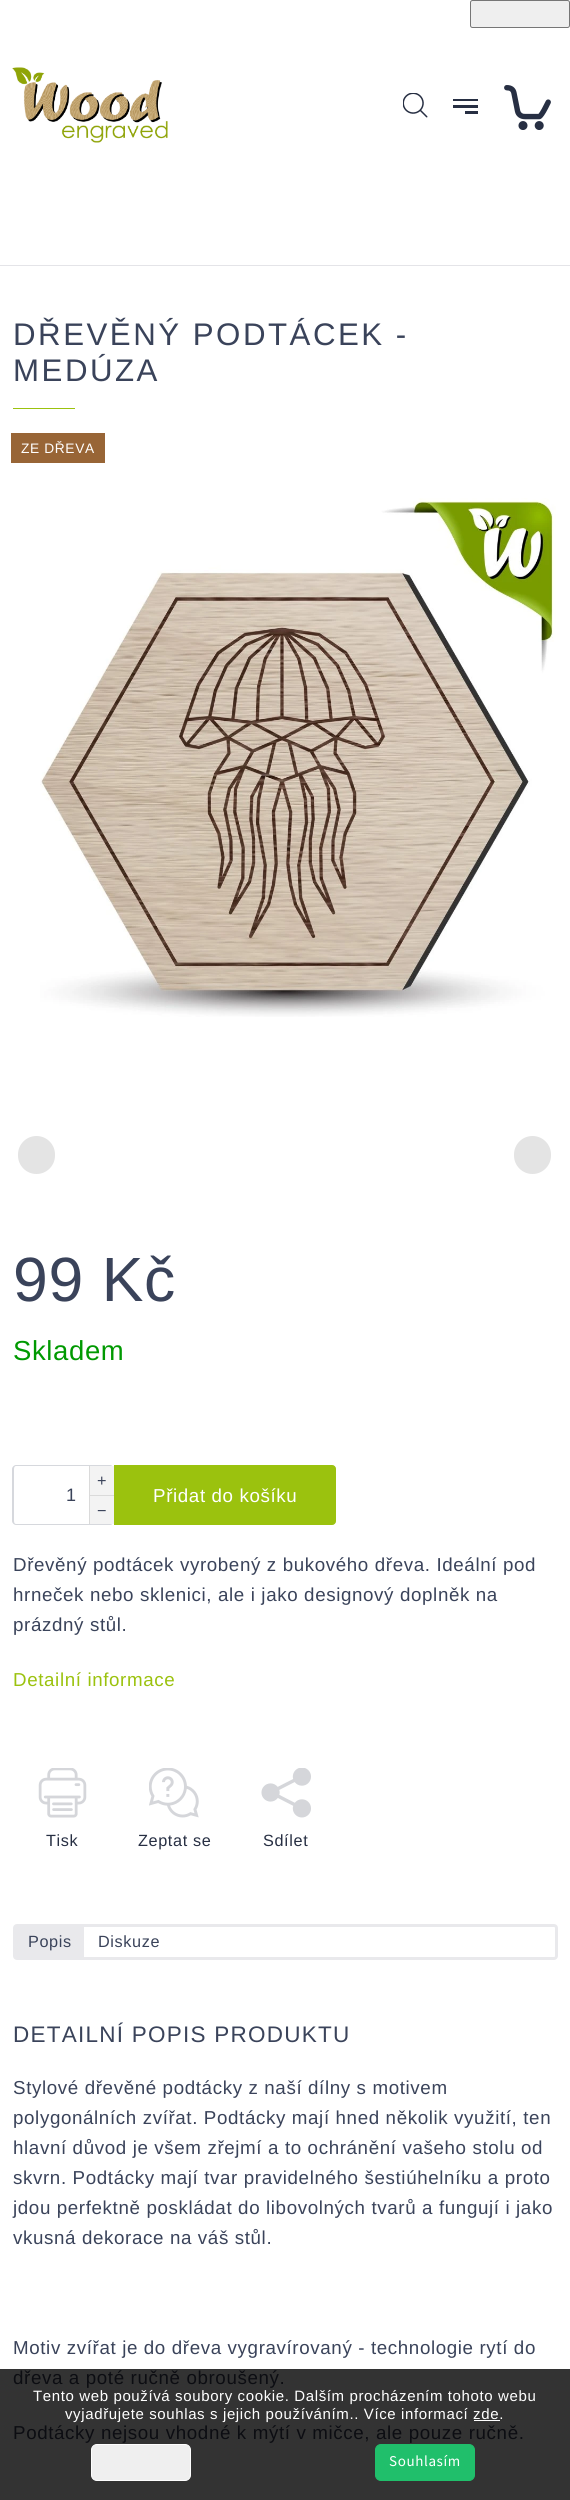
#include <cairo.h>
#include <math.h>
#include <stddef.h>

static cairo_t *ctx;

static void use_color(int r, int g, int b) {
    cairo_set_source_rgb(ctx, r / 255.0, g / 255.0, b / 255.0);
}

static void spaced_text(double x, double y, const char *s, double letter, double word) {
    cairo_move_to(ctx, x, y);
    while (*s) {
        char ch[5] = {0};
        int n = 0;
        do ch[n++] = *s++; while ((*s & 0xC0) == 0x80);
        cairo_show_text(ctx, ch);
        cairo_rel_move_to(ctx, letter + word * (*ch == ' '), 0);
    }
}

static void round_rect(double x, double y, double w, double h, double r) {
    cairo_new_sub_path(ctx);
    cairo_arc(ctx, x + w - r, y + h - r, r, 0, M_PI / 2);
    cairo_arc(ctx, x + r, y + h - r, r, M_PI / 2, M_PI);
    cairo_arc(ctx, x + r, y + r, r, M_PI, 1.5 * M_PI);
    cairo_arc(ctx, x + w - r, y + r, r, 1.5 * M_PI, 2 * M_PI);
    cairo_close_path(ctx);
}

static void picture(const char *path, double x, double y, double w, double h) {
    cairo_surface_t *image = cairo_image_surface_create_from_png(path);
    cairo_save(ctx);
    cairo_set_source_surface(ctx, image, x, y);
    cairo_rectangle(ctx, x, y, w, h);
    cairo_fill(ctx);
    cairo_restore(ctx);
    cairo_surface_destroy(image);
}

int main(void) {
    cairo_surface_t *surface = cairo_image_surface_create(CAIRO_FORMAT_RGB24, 570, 2500);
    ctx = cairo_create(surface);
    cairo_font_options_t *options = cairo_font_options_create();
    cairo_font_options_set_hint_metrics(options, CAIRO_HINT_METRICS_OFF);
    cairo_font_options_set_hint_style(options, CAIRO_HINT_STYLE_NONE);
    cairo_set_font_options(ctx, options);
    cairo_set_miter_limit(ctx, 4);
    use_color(255, 255, 255);
    cairo_paint(ctx);
    use_color(51, 51, 51);
    cairo_rectangle(ctx, 0, 2369, 570, 131);
    cairo_fill(ctx);
    use_color(239, 239, 239);
    round_rect(470.5, 0.5, 99, 27, 2);
    cairo_fill_preserve(ctx);
    use_color(118, 118, 118);
    cairo_set_line_width(ctx, 1);
    cairo_stroke(ctx);
    use_color(39, 47, 67);
    cairo_rectangle(ctx, 453, 99, 25, 2);
    cairo_fill(ctx);
    cairo_rectangle(ctx, 453, 105, 25, 3);
    cairo_fill(ctx);
    cairo_rectangle(ctx, 465, 111, 13, 3);
    cairo_fill(ctx);
    picture("img1.png", 403, 93, 25, 25);
    use_color(228, 228, 232);
    cairo_rectangle(ctx, 0, 265, 570, 1);
    cairo_fill(ctx);
    picture("img2.png", 12, 67, 156, 76);
    picture("img3.png", 504, 85, 47, 45);
    cairo_select_font_face(ctx, "Liberation Sans", CAIRO_FONT_SLANT_NORMAL, CAIRO_FONT_WEIGHT_NORMAL);
    cairo_set_font_size(ctx, 31.25);
    use_color(58, 67, 90);
    spaced_text(13, 345, "DŘEVĚNÝ PODTÁCEK -", 2.5, 0);
    spaced_text(13, 381, "MEDÚZA", 2.5, 0);
    use_color(155, 194, 14);
    cairo_rectangle(ctx, 13, 408, 62, 1);
    cairo_fill(ctx);
    use_color(152, 101, 54);
    cairo_rectangle(ctx, 11, 433, 94, 30);
    cairo_fill(ctx);
    cairo_set_font_size(ctx, 13.75);
    use_color(255, 255, 255);
    spaced_text(21, 453, "ZE DŘEVA", 0.62, 0);
    picture("img4.png", 40, 498, 516, 519);
    use_color(228, 228, 228);
    round_rect(18, 1136, 37, 38, 18.5);
    cairo_fill(ctx);
    round_rect(514, 1136, 37, 38, 18.5);
    cairo_fill(ctx);
    cairo_set_font_size(ctx, 62.5);
    use_color(58, 67, 90);
    spaced_text(13, 1301, "99 Kč", 0.62, 0);
    cairo_set_font_size(ctx, 27.5);
    use_color(0, 153, 1);
    spaced_text(13, 1360, "Skladem", 0.62, 0);
    use_color(214, 216, 221);
    cairo_set_fill_rule(ctx, CAIRO_FILL_RULE_EVEN_ODD);
    cairo_new_path(ctx);
    cairo_move_to(ctx, 16, 1465);
    cairo_line_to(ctx, 110, 1465);
    cairo_curve_to(ctx, 112, 1465, 114, 1467, 114, 1469);
    cairo_line_to(ctx, 114, 1521);
    cairo_curve_to(ctx, 114, 1523, 112, 1525, 110, 1525);
    cairo_line_to(ctx, 16, 1525);
    cairo_curve_to(ctx, 14, 1525, 12, 1523, 12, 1521);
    cairo_line_to(ctx, 12, 1469);
    cairo_curve_to(ctx, 12, 1467, 14, 1465, 16, 1465);
    cairo_close_path(ctx);
    cairo_move_to(ctx, 16, 1466);
    cairo_line_to(ctx, 110, 1466);
    cairo_curve_to(ctx, 112, 1466, 114, 1467, 114, 1469);
    cairo_line_to(ctx, 114, 1521);
    cairo_curve_to(ctx, 114, 1523, 112, 1524, 110, 1524);
    cairo_line_to(ctx, 16, 1524);
    cairo_curve_to(ctx, 15, 1524, 14, 1523, 14, 1521);
    cairo_line_to(ctx, 14, 1469);
    cairo_curve_to(ctx, 14, 1467, 15, 1466, 16, 1466);
    cairo_close_path(ctx);
    cairo_fill(ctx);
    use_color(243, 243, 243);
    cairo_rectangle(ctx, 90, 1466, 24, 29);
    cairo_fill(ctx);
    use_color(218, 218, 218);
    cairo_rectangle(ctx, 89, 1466, 1, 29);
    cairo_fill(ctx);
    cairo_set_font_size(ctx, 16.25);
    use_color(58, 67, 90);
    spaced_text(97, 1486, "+", 0.62, 0);
    cairo_set_font_size(ctx, 18);
    spaced_text(66, 1501, "1", 0.62, 0);
    use_color(243, 243, 243);
    cairo_rectangle(ctx, 90, 1496, 24, 28);
    cairo_fill(ctx);
    use_color(218, 218, 218);
    cairo_rectangle(ctx, 89, 1495, 25, 1);
    cairo_fill(ctx);
    cairo_rectangle(ctx, 89, 1495, 1, 29);
    cairo_fill(ctx);
    cairo_set_font_size(ctx, 16.25);
    use_color(58, 67, 90);
    spaced_text(97, 1516, "−", 0.62, 0);
    use_color(155, 194, 14);
    cairo_new_path(ctx);
    cairo_move_to(ctx, 114.5, 1465.5);
    cairo_line_to(ctx, 332, 1465.5);
    cairo_curve_to(ctx, 334, 1465.5, 335.5, 1467, 335.5, 1469);
    cairo_line_to(ctx, 335.5, 1521);
    cairo_curve_to(ctx, 335.5, 1523, 334, 1524.5, 332, 1524.5);
    cairo_line_to(ctx, 114.5, 1524.5);
    cairo_close_path(ctx);
    cairo_fill_preserve(ctx);
    cairo_stroke(ctx);
    cairo_set_font_size(ctx, 18.75);
    use_color(255, 255, 255);
    spaced_text(153, 1502, "Přidat do košíku", 0.62, 0);
    use_color(58, 67, 90);
    spaced_text(13, 1571, "Dřevěný podtácek vyrobený z bukového dřeva. Ideální pod", 0.62, 0);
    spaced_text(13, 1601, "hrneček nebo sklenici, ale i jako designový doplněk na", 0.62, 0);
    spaced_text(13, 1631, "prázdný stůl.", 0.62, 0);
    use_color(155, 194, 14);
    spaced_text(13, 1686, "Detailní informace", 0.62, 0);
    picture("img5.png", 38, 1768, 49, 50);
    cairo_set_font_size(ctx, 16.25);
    use_color(39, 47, 67);
    spaced_text(46, 1846, "Tisk", 0.62, 0);
    picture("img6.png", 149, 1768, 50, 50);
    spaced_text(138, 1846, "Zeptat se", 0.62, 0);
    picture("img7.png", 261, 1768, 50, 50);
    spaced_text(263, 1846, "Sdílet", 0.62, 0);
    round_rect(14.5, 1925.5, 542, 33, 2.5);
    use_color(233, 233, 236);
    cairo_set_line_width(ctx, 3);
    cairo_stroke(ctx);
    cairo_rectangle(ctx, 16, 1927, 68, 30);
    cairo_fill(ctx);
    use_color(58, 67, 90);
    spaced_text(28, 1947, "Popis", 0.62, 0);
    spaced_text(98, 1947, "Diskuze", 0.62, 0);
    cairo_set_font_size(ctx, 22.5);
    spaced_text(13, 2042, "DETAILNÍ POPIS PRODUKTU", 1.25, 0);
    cairo_set_font_size(ctx, 18.75);
    spaced_text(13, 2094, "Stylové dřevěné podtácky z naší dílny s motivem", 0.62, 0);
    spaced_text(13, 2124, "polygonálních zvířat. Podtácky mají hned několik využití, ten", 0.62, 0);
    spaced_text(13, 2154, "hlavní důvod je všem zřejmí a to ochránění vašeho stolu od", 0.62, 0);
    spaced_text(13, 2184, "skvrn. Podtácky mají tvar pravidelného šestiúhelníku a proto", 0.62, 0);
    spaced_text(13, 2214, "jdou perfektně poskládat do libovolných tvarů a fungují i jako", 0.62, 0);
    spaced_text(13, 2244, "vkusná dekorace na váš stůl.", 0.62, 0);
    spaced_text(13, 2354, "Motiv zvířat je do dřeva vygravírovaný - technologie rytí do", 0.62, 0);
    use_color(12, 13, 18);
    spaced_text(13, 2384, "dřeva a poté ručně obroušený.", 0.62, 0);
    spaced_text(13, 2439, "Podtácky nejsou vhodné k mýtí v mičce, ale pouze ručně.", 0.62, 0);
    cairo_set_font_size(ctx, 15);
    use_color(255, 255, 255);
    spaced_text(33, 2401, "Tento web používá soubory cookie. Dalším procházením tohoto webu", 0.62, 0);
    spaced_text(65, 2419, "vyjadřujete souhlas s jejich používáním.. Více informací zde.", 0.62, 0);
    cairo_rectangle(ctx, 474, 2420, 26, 1);
    cairo_fill(ctx);
    use_color(239, 239, 239);
    round_rect(91.5, 2444.5, 99, 36, 5.5);
    cairo_fill_preserve(ctx);
    use_color(255, 255, 255);
    cairo_set_line_width(ctx, 1);
    cairo_stroke(ctx);
    use_color(32, 191, 107);
    round_rect(375.5, 2444.5, 99, 36, 5.5);
    cairo_fill_preserve(ctx);
    cairo_stroke(ctx);
    cairo_select_font_face(ctx, "Source Sans 3", CAIRO_FONT_SLANT_NORMAL, CAIRO_FONT_WEIGHT_NORMAL);
    use_color(255, 255, 255);
    spaced_text(389, 2466, "Souhlasím", 0.62, 0);
    cairo_surface_write_to_png(surface, "result.png");
    cairo_font_options_destroy(options);
    cairo_destroy(ctx);
    cairo_surface_destroy(surface);
    return 0;
}
